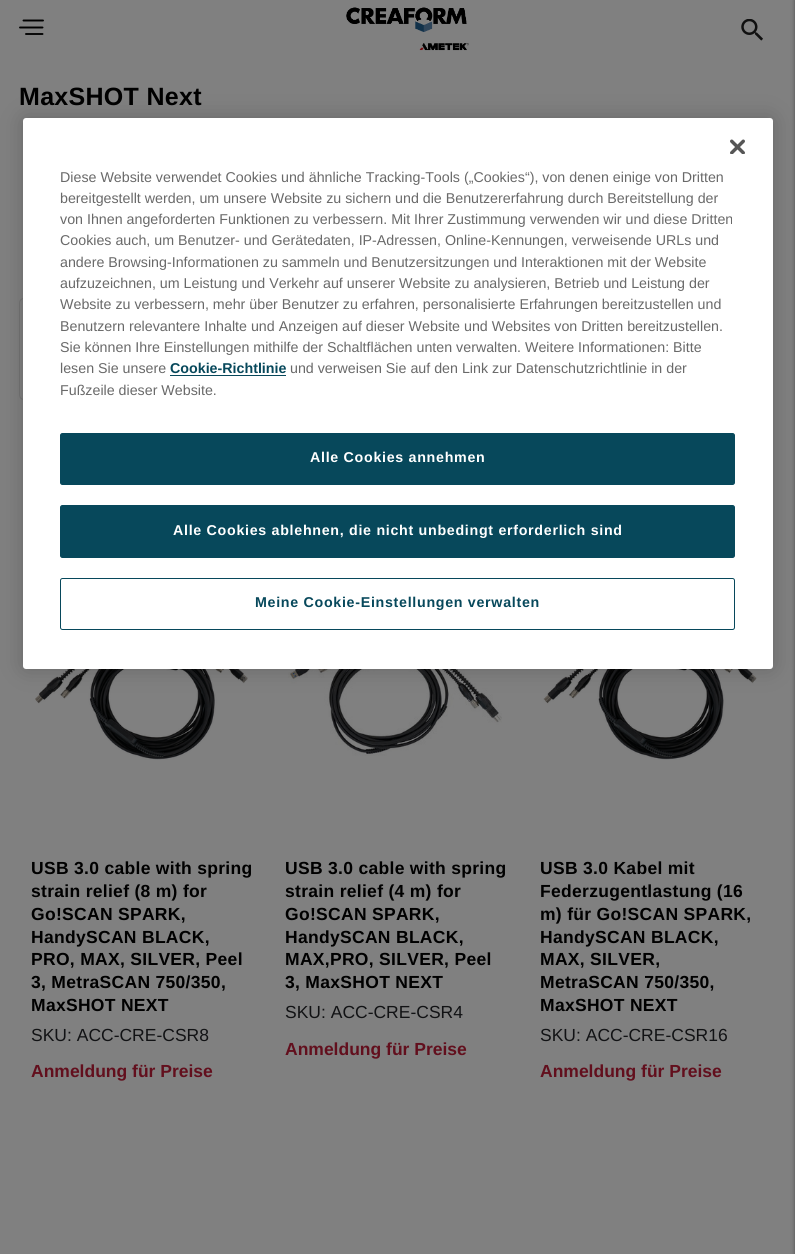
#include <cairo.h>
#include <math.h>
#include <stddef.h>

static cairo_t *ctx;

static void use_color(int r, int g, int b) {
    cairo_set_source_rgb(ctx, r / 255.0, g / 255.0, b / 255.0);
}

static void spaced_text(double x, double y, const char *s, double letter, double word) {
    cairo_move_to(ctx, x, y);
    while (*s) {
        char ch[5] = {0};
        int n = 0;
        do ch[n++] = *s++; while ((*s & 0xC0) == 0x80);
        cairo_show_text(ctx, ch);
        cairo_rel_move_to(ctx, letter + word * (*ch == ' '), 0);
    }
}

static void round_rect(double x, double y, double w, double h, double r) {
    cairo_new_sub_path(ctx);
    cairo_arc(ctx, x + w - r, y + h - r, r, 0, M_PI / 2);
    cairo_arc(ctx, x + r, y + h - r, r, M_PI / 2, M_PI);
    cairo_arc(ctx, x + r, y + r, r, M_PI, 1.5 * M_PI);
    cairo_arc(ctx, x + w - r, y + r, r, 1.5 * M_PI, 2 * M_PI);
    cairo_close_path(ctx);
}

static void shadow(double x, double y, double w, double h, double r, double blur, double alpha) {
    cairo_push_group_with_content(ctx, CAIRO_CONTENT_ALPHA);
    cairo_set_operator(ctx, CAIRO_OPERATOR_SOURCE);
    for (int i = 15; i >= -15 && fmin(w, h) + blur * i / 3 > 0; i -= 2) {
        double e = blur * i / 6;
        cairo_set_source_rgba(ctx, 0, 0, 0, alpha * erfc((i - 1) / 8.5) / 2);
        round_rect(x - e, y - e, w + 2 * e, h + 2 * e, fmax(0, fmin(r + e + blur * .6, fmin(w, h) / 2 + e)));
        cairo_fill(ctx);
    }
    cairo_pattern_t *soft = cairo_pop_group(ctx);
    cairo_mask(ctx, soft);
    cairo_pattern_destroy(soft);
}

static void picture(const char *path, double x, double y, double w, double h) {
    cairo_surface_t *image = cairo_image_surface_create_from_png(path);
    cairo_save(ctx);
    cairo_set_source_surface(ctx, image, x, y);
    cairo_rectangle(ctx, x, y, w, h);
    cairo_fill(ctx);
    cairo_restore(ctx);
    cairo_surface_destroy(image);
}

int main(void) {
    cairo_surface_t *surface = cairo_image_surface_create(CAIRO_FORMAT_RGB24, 795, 1254);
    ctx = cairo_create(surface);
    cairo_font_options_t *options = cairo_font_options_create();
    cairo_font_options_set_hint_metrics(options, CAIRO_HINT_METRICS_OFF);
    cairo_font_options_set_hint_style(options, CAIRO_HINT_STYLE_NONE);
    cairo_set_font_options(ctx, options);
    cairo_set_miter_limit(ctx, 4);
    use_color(128, 128, 128);
    cairo_paint(ctx);
    cairo_new_path(ctx);
    cairo_move_to(ctx, 20, 27.5);
    cairo_line_to(ctx, 42.5, 27.5);
    cairo_move_to(ctx, 23.5, 20.5);
    cairo_line_to(ctx, 43, 20.5);
    cairo_move_to(ctx, 26, 34);
    cairo_line_to(ctx, 42.5, 34);
    use_color(0, 0, 0);
    cairo_set_line_width(ctx, 1.9);
    cairo_set_line_cap(ctx, CAIRO_LINE_CAP_ROUND);
    cairo_set_line_join(ctx, CAIRO_LINE_JOIN_ROUND);
    cairo_stroke(ctx);
    picture("img1.png", 346, 7, 123, 44);
    picture("img2.png", 741, 19, 22, 22);
    use_color(0, 0, 0);
    shadow(795, 0, 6, 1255, 0, 2, 0.4);
    cairo_select_font_face(ctx, "Liberation Sans", CAIRO_FONT_SLANT_NORMAL, CAIRO_FONT_WEIGHT_BOLD);
    cairo_set_font_size(ctx, 25);
    use_color(0, 0, 0);
    spaced_text(19, 105, "MaxSHOT Next", 0.3, 0);
    round_rect(19.5, 298.5, 744, 101, 4.5);
    use_color(115, 115, 115);
    cairo_set_line_width(ctx, 1);
    cairo_set_line_cap(ctx, CAIRO_LINE_CAP_BUTT);
    cairo_set_line_join(ctx, CAIRO_LINE_JOIN_MITER);
    cairo_stroke(ctx);
    picture("img3.png", 35, 669, 213, 91);
    cairo_set_font_size(ctx, 17.5);
    use_color(0, 0, 0);
    spaced_text(31, 874, "USB 3.0 cable with spring", 0.3, 0);
    spaced_text(31, 897, "strain relief (8 m) for", 0.3, 0);
    spaced_text(31, 920, "Go!SCAN SPARK,", 0.3, 0);
    spaced_text(31, 943, "HandySCAN BLACK,", 0.3, 0);
    spaced_text(31, 965, "PRO, MAX, SILVER, Peel", 0.3, 0);
    spaced_text(31, 988, "3, MetraSCAN 750/350,", 0.3, 0);
    spaced_text(31, 1011, "MaxSHOT NEXT", 0.3, 0);
    cairo_select_font_face(ctx, "Liberation Sans", CAIRO_FONT_SLANT_NORMAL, CAIRO_FONT_WEIGHT_NORMAL);
    use_color(17, 18, 20);
    cairo_move_to(ctx, 31, 1041);
    cairo_show_text(ctx, "SKU: ACC-CRE-CSR8");
    cairo_select_font_face(ctx, "Liberation Sans", CAIRO_FONT_SLANT_NORMAL, CAIRO_FONT_WEIGHT_BOLD);
    use_color(98, 15, 29);
    cairo_move_to(ctx, 31, 1077);
    cairo_show_text(ctx, "Anmeldung für Preise");
    picture("img4.png", 288, 669, 214, 87);
    use_color(0, 0, 0);
    spaced_text(285, 874, "USB 3.0 cable with spring", 0.3, 0);
    spaced_text(285, 897, "strain relief (4 m) for", 0.3, 0);
    spaced_text(285, 920, "Go!SCAN SPARK,", 0.3, 0);
    spaced_text(285, 943, "HandySCAN BLACK,", 0.3, 0);
    spaced_text(285, 965, "MAX,PRO, SILVER, Peel", 0.3, 0);
    spaced_text(285, 988, "3, MaxSHOT NEXT", 0.3, 0);
    cairo_select_font_face(ctx, "Liberation Sans", CAIRO_FONT_SLANT_NORMAL, CAIRO_FONT_WEIGHT_NORMAL);
    use_color(17, 18, 20);
    cairo_move_to(ctx, 285, 1018);
    cairo_show_text(ctx, "SKU: ACC-CRE-CSR4");
    cairo_select_font_face(ctx, "Liberation Sans", CAIRO_FONT_SLANT_NORMAL, CAIRO_FONT_WEIGHT_BOLD);
    use_color(98, 15, 29);
    cairo_move_to(ctx, 285, 1055);
    cairo_show_text(ctx, "Anmeldung für Preise");
    picture("img5.png", 543, 669, 214, 91);
    use_color(0, 0, 0);
    spaced_text(540, 874, "USB 3.0 Kabel mit", 0.3, 0);
    spaced_text(540, 897, "Federzugentlastung (16", 0.3, 0);
    spaced_text(540, 920, "m) für Go!SCAN SPARK,", 0.3, 0);
    spaced_text(540, 943, "HandySCAN BLACK,", 0.3, 0);
    spaced_text(540, 965, "MAX, SILVER,", 0.3, 0);
    spaced_text(540, 988, "MetraSCAN 750/350,", 0.3, 0);
    spaced_text(540, 1011, "MaxSHOT NEXT", 0.3, 0);
    cairo_select_font_face(ctx, "Liberation Sans", CAIRO_FONT_SLANT_NORMAL, CAIRO_FONT_WEIGHT_NORMAL);
    use_color(17, 18, 20);
    cairo_move_to(ctx, 540, 1041);
    cairo_show_text(ctx, "SKU: ACC-CRE-CSR16");
    cairo_select_font_face(ctx, "Liberation Sans", CAIRO_FONT_SLANT_NORMAL, CAIRO_FONT_WEIGHT_BOLD);
    use_color(98, 15, 29);
    cairo_move_to(ctx, 540, 1077);
    cairo_show_text(ctx, "Anmeldung für Preise");
    use_color(0, 0, 0);
    shadow(23, 118, 750, 551, 3, 11, 0.2);
    use_color(255, 255, 255);
    round_rect(23, 118, 750, 551, 3);
    cairo_fill(ctx);
    picture("img6.png", 730, 139, 15, 15);
    cairo_select_font_face(ctx, "Liberation Sans", CAIRO_FONT_SLANT_NORMAL, CAIRO_FONT_WEIGHT_NORMAL);
    cairo_set_font_size(ctx, 14.25);
    use_color(105, 105, 105);
    cairo_move_to(ctx, 60, 182);
    cairo_show_text(ctx, "Diese Website verwendet Cookies und ähnliche Tracking-Tools („Cookies“), von denen einige von Dritten");
    cairo_move_to(ctx, 60, 203);
    cairo_show_text(ctx, "bereitgestellt werden, um unsere Website zu sichern und die Benutzererfahrung durch Bereitstellung der");
    cairo_move_to(ctx, 60, 224);
    cairo_show_text(ctx, "von Ihnen angeforderten Funktionen zu verbessern. Mit Ihrer Zustimmung verwenden wir und diese Dritten");
    cairo_move_to(ctx, 60, 245);
    cairo_show_text(ctx, "Cookies auch, um Benutzer- und Gerätedaten, IP-Adressen, Online-Kennungen, verweisende URLs und");
    cairo_move_to(ctx, 60, 267);
    cairo_show_text(ctx, "andere Browsing-Informationen zu sammeln und Benutzersitzungen und Interaktionen mit der Website");
    cairo_move_to(ctx, 60, 288);
    cairo_show_text(ctx, "aufzuzeichnen, um Leistung und Verkehr auf unserer Website zu analysieren, Betrieb und Leistung der");
    cairo_move_to(ctx, 60, 309);
    cairo_show_text(ctx, "Website zu verbessern, mehr über Benutzer zu erfahren, personalisierte Erfahrungen bereitzustellen und");
    cairo_move_to(ctx, 60, 331);
    cairo_show_text(ctx, "Benutzern relevantere Inhalte und Anzeigen auf dieser Website und Websites von Dritten bereitzustellen.");
    cairo_move_to(ctx, 60, 352);
    cairo_show_text(ctx, "Sie können Ihre Einstellungen mithilfe der Schaltflächen unten verwalten. Weitere Informationen: Bitte");
    cairo_move_to(ctx, 60, 373);
    cairo_show_text(ctx, "lesen Sie unsere");
    cairo_select_font_face(ctx, "Liberation Sans", CAIRO_FONT_SLANT_NORMAL, CAIRO_FONT_WEIGHT_BOLD);
    use_color(7, 72, 91);
    cairo_move_to(ctx, 170, 373);
    cairo_show_text(ctx, "Cookie-Richtlinie");
    cairo_rectangle(ctx, 170, 375, 116, 1);
    cairo_fill(ctx);
    cairo_select_font_face(ctx, "Liberation Sans", CAIRO_FONT_SLANT_NORMAL, CAIRO_FONT_WEIGHT_NORMAL);
    use_color(105, 105, 105);
    cairo_move_to(ctx, 290, 373);
    cairo_show_text(ctx, "und verweisen Sie auf den Link zur Datenschutzrichtlinie in der");
    cairo_move_to(ctx, 60, 395);
    cairo_show_text(ctx, "Fußzeile dieser Website.");
    use_color(7, 72, 91);
    round_rect(60.5, 433.5, 674, 51, 2);
    cairo_fill_preserve(ctx);
    cairo_stroke(ctx);
    cairo_select_font_face(ctx, "Liberation Sans", CAIRO_FONT_SLANT_NORMAL, CAIRO_FONT_WEIGHT_BOLD);
    use_color(255, 255, 255);
    spaced_text(310, 462, "Alle Cookies annehmen", 0.7, 0);
    use_color(7, 72, 91);
    round_rect(60.5, 505.5, 674, 52, 2);
    cairo_fill_preserve(ctx);
    cairo_stroke(ctx);
    use_color(255, 255, 255);
    spaced_text(173, 535, "Alle Cookies ablehnen, die nicht unbedingt erforderlich sind", 0.7, 0);
    round_rect(60.5, 578.5, 674, 51, 2);
    use_color(7, 72, 91);
    cairo_stroke(ctx);
    spaced_text(255, 607, "Meine Cookie-Einstellungen verwalten", 0.7, 0);
    cairo_surface_write_to_png(surface, "result.png");
    cairo_font_options_destroy(options);
    cairo_destroy(ctx);
    cairo_surface_destroy(surface);
    return 0;
}
